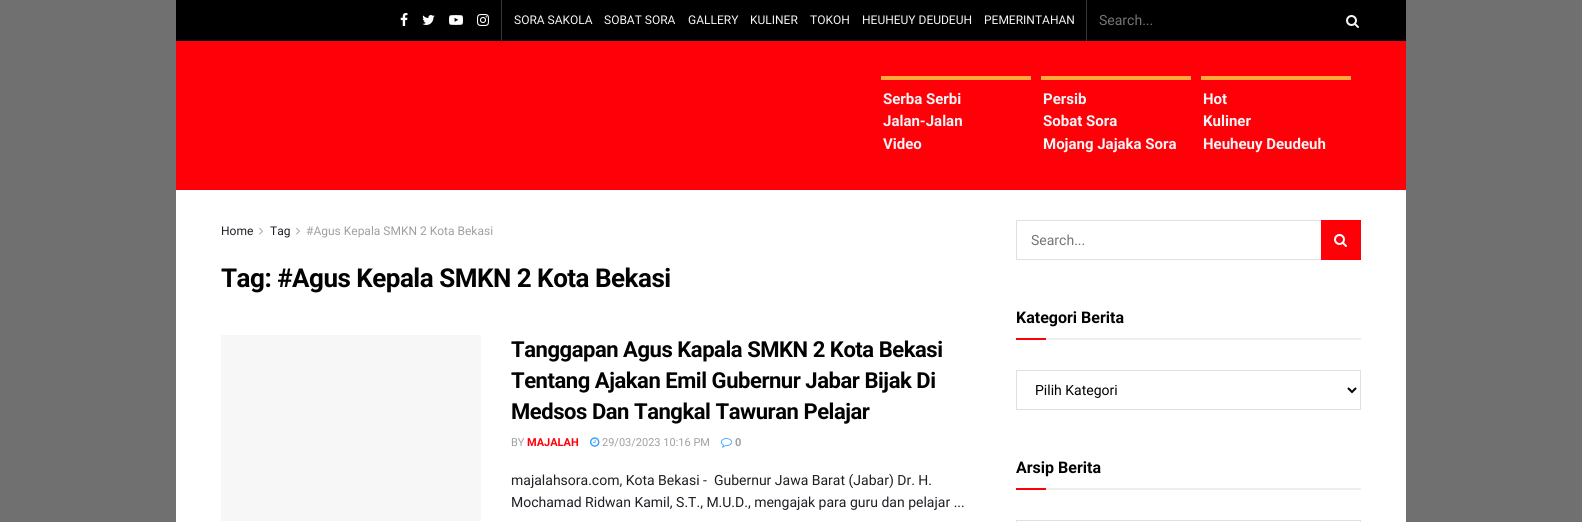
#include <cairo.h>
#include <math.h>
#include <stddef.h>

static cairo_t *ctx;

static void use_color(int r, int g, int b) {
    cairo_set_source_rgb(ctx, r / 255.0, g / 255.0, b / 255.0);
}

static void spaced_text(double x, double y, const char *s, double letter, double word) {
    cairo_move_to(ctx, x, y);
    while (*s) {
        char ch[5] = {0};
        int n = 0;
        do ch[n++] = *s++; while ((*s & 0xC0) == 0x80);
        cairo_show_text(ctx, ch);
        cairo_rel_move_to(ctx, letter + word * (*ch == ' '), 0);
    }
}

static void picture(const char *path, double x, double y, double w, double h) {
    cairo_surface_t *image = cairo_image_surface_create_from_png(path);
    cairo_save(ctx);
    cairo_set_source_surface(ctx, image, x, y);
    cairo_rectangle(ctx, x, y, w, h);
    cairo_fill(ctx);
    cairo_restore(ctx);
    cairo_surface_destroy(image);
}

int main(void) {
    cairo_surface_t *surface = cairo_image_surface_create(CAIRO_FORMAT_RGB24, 1582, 522);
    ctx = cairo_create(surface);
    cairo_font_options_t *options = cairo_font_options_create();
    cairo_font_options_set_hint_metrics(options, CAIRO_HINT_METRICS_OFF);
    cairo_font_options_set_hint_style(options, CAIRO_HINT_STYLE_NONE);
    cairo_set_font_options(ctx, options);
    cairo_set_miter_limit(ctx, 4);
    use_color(112, 112, 112);
    cairo_paint(ctx);
    use_color(0, 0, 0);
    cairo_rectangle(ctx, 176, 0, 1230, 41);
    cairo_fill(ctx);
    use_color(255, 0, 9);
    cairo_rectangle(ctx, 176, 41, 1230, 149);
    cairo_fill(ctx);
    use_color(56, 56, 56);
    cairo_rectangle(ctx, 501, 0, 1, 42);
    cairo_fill(ctx);
    picture("img1.png", 400, 13, 8, 13);
    picture("img2.png", 422, 15, 13, 10);
    picture("img3.png", 449, 15, 14, 10);
    picture("img4.png", 477, 14, 12, 12);
    cairo_rectangle(ctx, 1086, 0, 1, 41);
    cairo_fill(ctx);
    cairo_select_font_face(ctx, "Roboto", CAIRO_FONT_SLANT_NORMAL, CAIRO_FONT_WEIGHT_NORMAL);
    cairo_set_font_size(ctx, 12);
    use_color(245, 245, 245);
    cairo_move_to(ctx, 514, 24);
    cairo_show_text(ctx, "SORA SAKOLA");
    cairo_move_to(ctx, 604, 24);
    cairo_show_text(ctx, "SOBAT SORA");
    cairo_move_to(ctx, 688, 24);
    cairo_show_text(ctx, "GALLERY");
    cairo_move_to(ctx, 750, 24);
    cairo_show_text(ctx, "KULINER");
    cairo_move_to(ctx, 810, 24);
    cairo_show_text(ctx, "TOKOH");
    cairo_move_to(ctx, 862, 24);
    cairo_show_text(ctx, "HEUHEUY DEUDEUH");
    cairo_move_to(ctx, 984, 24);
    cairo_show_text(ctx, "PEMERINTAHAN");
    cairo_set_font_size(ctx, 14);
    use_color(117, 117, 117);
    cairo_move_to(ctx, 1099, 25);
    cairo_show_text(ctx, "Search...");
    picture("img5.png", 1346, 15, 13, 13);
    use_color(255, 169, 58);
    cairo_rectangle(ctx, 881, 76, 150, 4);
    cairo_fill(ctx);
    cairo_select_font_face(ctx, "Roboto", CAIRO_FONT_SLANT_NORMAL, CAIRO_FONT_WEIGHT_BOLD);
    cairo_set_font_size(ctx, 15);
    use_color(245, 245, 245);
    cairo_move_to(ctx, 883, 104);
    cairo_show_text(ctx, "Serba Serbi");
    cairo_move_to(ctx, 883, 126);
    cairo_show_text(ctx, "Jalan-Jalan");
    cairo_move_to(ctx, 883, 149);
    cairo_show_text(ctx, "Video");
    use_color(255, 169, 58);
    cairo_rectangle(ctx, 1041, 76, 150, 4);
    cairo_fill(ctx);
    use_color(245, 245, 245);
    cairo_move_to(ctx, 1043, 104);
    cairo_show_text(ctx, "Persib");
    cairo_move_to(ctx, 1043, 126);
    cairo_show_text(ctx, "Sobat Sora");
    cairo_move_to(ctx, 1043, 149);
    cairo_show_text(ctx, "Mojang Jajaka Sora");
    use_color(255, 169, 58);
    cairo_rectangle(ctx, 1201, 76, 150, 4);
    cairo_fill(ctx);
    use_color(245, 245, 245);
    cairo_move_to(ctx, 1203, 104);
    cairo_show_text(ctx, "Hot");
    cairo_move_to(ctx, 1203, 126);
    cairo_show_text(ctx, "Kuliner");
    cairo_move_to(ctx, 1203, 149);
    cairo_show_text(ctx, "Heuheuy Deudeuh");
    use_color(255, 255, 255);
    cairo_rectangle(ctx, 176, 190, 1230, 332);
    cairo_fill(ctx);
    cairo_select_font_face(ctx, "Roboto", CAIRO_FONT_SLANT_NORMAL, CAIRO_FONT_WEIGHT_NORMAL);
    cairo_set_font_size(ctx, 12);
    use_color(31, 32, 38);
    cairo_move_to(ctx, 221, 235);
    cairo_show_text(ctx, "Home");
    picture("img6.png", 259, 227, 4, 8);
    cairo_move_to(ctx, 270, 235);
    cairo_show_text(ctx, "Tag");
    picture("img6.png", 296, 227, 4, 8);
    use_color(160, 160, 160);
    cairo_move_to(ctx, 306, 235);
    cairo_show_text(ctx, "#Agus Kepala SMKN 2 Kota Bekasi");
    cairo_select_font_face(ctx, "Roboto", CAIRO_FONT_SLANT_NORMAL, CAIRO_FONT_WEIGHT_BOLD);
    cairo_set_font_size(ctx, 26);
    use_color(2, 2, 2);
    spaced_text(221, 287, "Tag: #Agus Kepala SMKN 2 Kota Bekasi", -0.5, 0);
    use_color(247, 247, 247);
    cairo_rectangle(ctx, 221, 335, 260, 186);
    cairo_fill(ctx);
    cairo_set_font_size(ctx, 22);
    use_color(2, 2, 2);
    spaced_text(511, 357, "Tanggapan Agus Kapala SMKN 2 Kota Bekasi", -0.45, 0);
    spaced_text(511, 388, "Tentang Ajakan Emil Gubernur Jabar Bijak Di", -0.45, 0);
    spaced_text(511, 419, "Medsos Dan Tangkal Tawuran Pelajar", -0.45, 0);
    cairo_select_font_face(ctx, "Roboto", CAIRO_FONT_SLANT_NORMAL, CAIRO_FONT_WEIGHT_NORMAL);
    cairo_set_font_size(ctx, 11);
    use_color(160, 160, 160);
    cairo_move_to(ctx, 511, 446);
    cairo_show_text(ctx, "BY");
    cairo_select_font_face(ctx, "Roboto", CAIRO_FONT_SLANT_NORMAL, CAIRO_FONT_WEIGHT_BOLD);
    use_color(255, 0, 9);
    cairo_move_to(ctx, 527, 446);
    cairo_show_text(ctx, "MAJALAH");
    picture("img7.png", 590, 437, 10, 10);
    cairo_select_font_face(ctx, "Roboto", CAIRO_FONT_SLANT_NORMAL, CAIRO_FONT_WEIGHT_NORMAL);
    use_color(160, 160, 160);
    cairo_move_to(ctx, 602, 446);
    cairo_show_text(ctx, "29/03/2023 10:16 PM");
    picture("img8.png", 721, 438, 11, 10);
    cairo_select_font_face(ctx, "Roboto", CAIRO_FONT_SLANT_NORMAL, CAIRO_FONT_WEIGHT_BOLD);
    cairo_move_to(ctx, 735, 446);
    cairo_show_text(ctx, "0");
    cairo_select_font_face(ctx, "Roboto", CAIRO_FONT_SLANT_NORMAL, CAIRO_FONT_WEIGHT_NORMAL);
    cairo_set_font_size(ctx, 14);
    use_color(31, 32, 38);
    cairo_move_to(ctx, 511, 485);
    cairo_show_text(ctx, "majalahsora.com, Kota Bekasi -  Gubernur Jawa Barat (Jabar) Dr. H.");
    cairo_move_to(ctx, 511, 507);
    cairo_show_text(ctx, "Mochamad Ridwan Kamil, S.T., M.U.D., mengajak para guru dan pelajar ...");
    cairo_rectangle(ctx, 1016.5, 220.5, 344, 39);
    use_color(224, 224, 224);
    cairo_set_line_width(ctx, 1);
    cairo_stroke(ctx);
    use_color(117, 117, 117);
    cairo_move_to(ctx, 1031, 245);
    cairo_show_text(ctx, "Search...");
    use_color(255, 0, 9);
    cairo_rectangle(ctx, 1321, 220, 40, 40);
    cairo_fill(ctx);
    picture("img9.png", 1334, 234, 13, 13);
    use_color(238, 238, 238);
    cairo_rectangle(ctx, 1046, 338, 315, 2);
    cairo_fill(ctx);
    cairo_select_font_face(ctx, "Roboto", CAIRO_FONT_SLANT_NORMAL, CAIRO_FONT_WEIGHT_BOLD);
    cairo_set_font_size(ctx, 16);
    use_color(2, 2, 2);
    cairo_move_to(ctx, 1016, 323);
    cairo_show_text(ctx, "Kategori Berita");
    use_color(255, 0, 9);
    cairo_rectangle(ctx, 1016, 338, 30, 2);
    cairo_fill(ctx);
    cairo_rectangle(ctx, 1016.5, 370.5, 344, 39);
    use_color(224, 224, 224);
    cairo_stroke(ctx);
    cairo_new_path(ctx);
    cairo_move_to(ctx, 1348, 388);
    cairo_line_to(ctx, 1352, 392);
    cairo_line_to(ctx, 1356, 388);
    use_color(0, 0, 0);
    cairo_set_line_width(ctx, 2);
    cairo_stroke(ctx);
    cairo_select_font_face(ctx, "Roboto", CAIRO_FONT_SLANT_NORMAL, CAIRO_FONT_WEIGHT_NORMAL);
    cairo_set_font_size(ctx, 14);
    use_color(2, 2, 2);
    cairo_move_to(ctx, 1035, 395);
    cairo_show_text(ctx, "Pilih Kategori");
    use_color(238, 238, 238);
    cairo_rectangle(ctx, 1046, 488, 315, 2);
    cairo_fill(ctx);
    cairo_select_font_face(ctx, "Roboto", CAIRO_FONT_SLANT_NORMAL, CAIRO_FONT_WEIGHT_BOLD);
    cairo_set_font_size(ctx, 16);
    use_color(2, 2, 2);
    cairo_move_to(ctx, 1016, 473);
    cairo_show_text(ctx, "Arsip Berita");
    use_color(255, 0, 9);
    cairo_rectangle(ctx, 1016, 488, 30, 2);
    cairo_fill(ctx);
    cairo_rectangle(ctx, 1016.5, 520.5, 344, 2);
    use_color(224, 224, 224);
    cairo_set_line_width(ctx, 1);
    cairo_stroke(ctx);
    cairo_surface_write_to_png(surface, "result.png");
    cairo_font_options_destroy(options);
    cairo_destroy(ctx);
    cairo_surface_destroy(surface);
    return 0;
}
